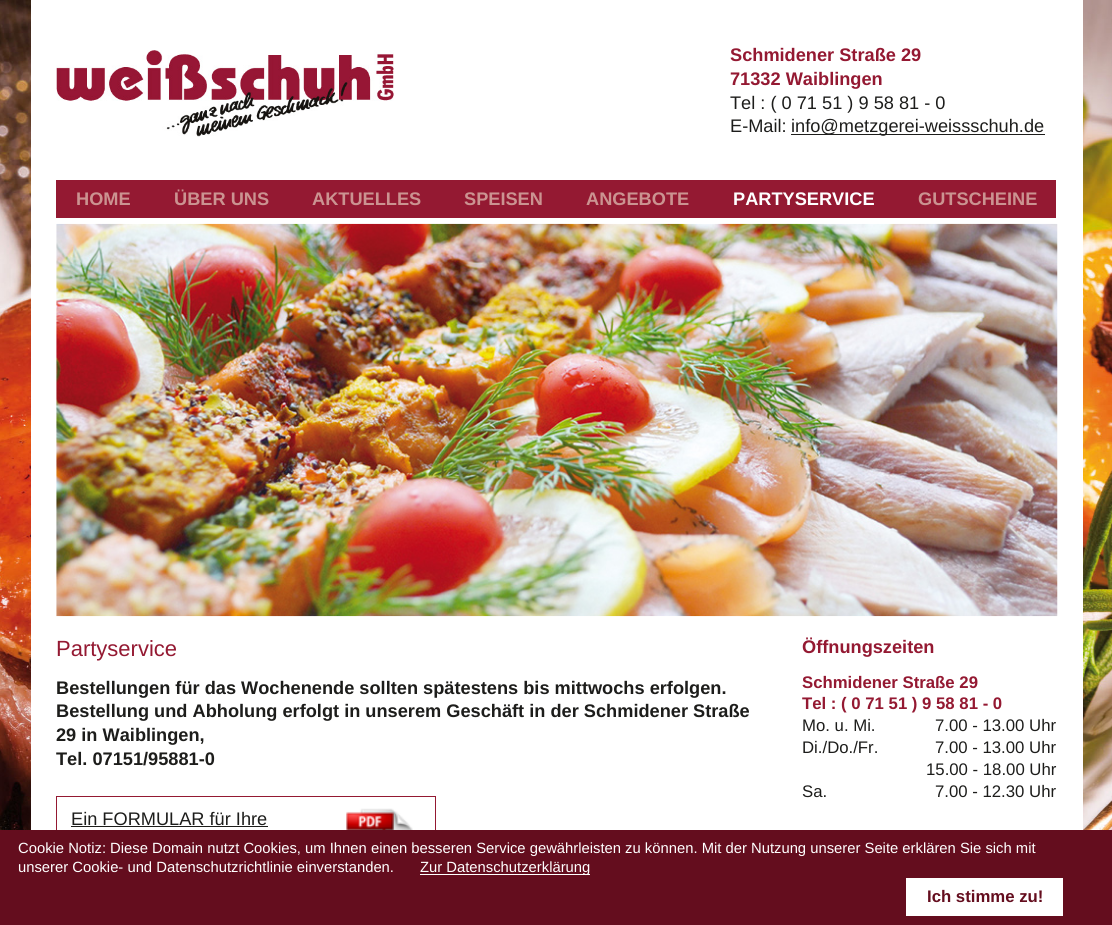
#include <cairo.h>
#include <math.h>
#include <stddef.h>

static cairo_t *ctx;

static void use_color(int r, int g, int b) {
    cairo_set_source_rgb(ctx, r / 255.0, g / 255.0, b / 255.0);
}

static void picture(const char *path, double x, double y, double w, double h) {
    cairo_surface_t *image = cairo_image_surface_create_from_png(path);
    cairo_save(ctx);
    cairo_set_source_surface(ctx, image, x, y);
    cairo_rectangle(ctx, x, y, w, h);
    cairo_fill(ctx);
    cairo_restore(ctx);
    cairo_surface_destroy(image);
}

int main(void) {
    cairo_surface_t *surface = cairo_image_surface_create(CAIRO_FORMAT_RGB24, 1112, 925);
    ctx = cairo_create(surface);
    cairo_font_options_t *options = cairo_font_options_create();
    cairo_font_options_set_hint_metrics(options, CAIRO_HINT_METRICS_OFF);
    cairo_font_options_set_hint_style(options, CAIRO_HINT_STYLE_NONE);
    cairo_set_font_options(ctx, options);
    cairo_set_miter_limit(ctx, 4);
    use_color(255, 255, 255);
    cairo_paint(ctx);
    picture("img1.png", 0, 0, 1112, 830);
    use_color(255, 255, 255);
    cairo_rectangle(ctx, 31, 0, 1052, 830);
    cairo_fill(ctx);
    picture("img2.png", 56, 50, 338, 87);
    cairo_select_font_face(ctx, "Liberation Sans", CAIRO_FONT_SLANT_NORMAL, CAIRO_FONT_WEIGHT_BOLD);
    cairo_set_font_size(ctx, 18.2);
    use_color(148, 25, 50);
    cairo_move_to(ctx, 730, 61);
    cairo_show_text(ctx, "Schmidener Straße 29");
    cairo_move_to(ctx, 730, 85);
    cairo_show_text(ctx, "71332 Waiblingen");
    cairo_select_font_face(ctx, "Liberation Sans", CAIRO_FONT_SLANT_NORMAL, CAIRO_FONT_WEIGHT_NORMAL);
    use_color(29, 29, 27);
    cairo_move_to(ctx, 730, 109);
    cairo_show_text(ctx, "Tel : ( 0 71 51 ) 9 58 81 - 0");
    cairo_move_to(ctx, 730, 132);
    cairo_show_text(ctx, "E-Mail:");
    cairo_rectangle(ctx, 791, 134, 254, 1);
    cairo_fill(ctx);
    cairo_move_to(ctx, 791, 132);
    cairo_show_text(ctx, "info@metzgerei-weissschuh.de");
    use_color(148, 25, 50);
    cairo_rectangle(ctx, 56, 180, 1000, 38);
    cairo_fill(ctx);
    cairo_select_font_face(ctx, "Liberation Sans", CAIRO_FONT_SLANT_NORMAL, CAIRO_FONT_WEIGHT_BOLD);
    use_color(203, 147, 145);
    cairo_move_to(ctx, 76, 205);
    cairo_show_text(ctx, "HOME");
    cairo_move_to(ctx, 174, 205);
    cairo_show_text(ctx, "ÜBER UNS");
    cairo_move_to(ctx, 312, 205);
    cairo_show_text(ctx, "AKTUELLES");
    cairo_move_to(ctx, 464, 205);
    cairo_show_text(ctx, "SPEISEN");
    cairo_move_to(ctx, 586, 205);
    cairo_show_text(ctx, "ANGEBOTE");
    use_color(255, 255, 255);
    cairo_move_to(ctx, 733, 205);
    cairo_show_text(ctx, "PARTYSERVICE");
    use_color(203, 147, 145);
    cairo_move_to(ctx, 918, 205);
    cairo_show_text(ctx, "GUTSCHEINE");
    picture("img3.png", 56, 223, 1002, 394);
    cairo_select_font_face(ctx, "Liberation Sans", CAIRO_FONT_SLANT_NORMAL, CAIRO_FONT_WEIGHT_NORMAL);
    cairo_set_font_size(ctx, 22);
    use_color(148, 25, 50);
    cairo_move_to(ctx, 56, 656);
    cairo_show_text(ctx, "Partyservice");
    cairo_select_font_face(ctx, "Liberation Sans", CAIRO_FONT_SLANT_NORMAL, CAIRO_FONT_WEIGHT_BOLD);
    cairo_set_font_size(ctx, 18.2);
    use_color(29, 29, 27);
    cairo_move_to(ctx, 56, 694);
    cairo_show_text(ctx, "Bestellungen für das Wochenende sollten spätestens bis mittwochs erfolgen.");
    cairo_move_to(ctx, 56, 717);
    cairo_show_text(ctx, "Bestellung und Abholung erfolgt in unserem Geschäft in der Schmidener Straße");
    cairo_move_to(ctx, 56, 741);
    cairo_show_text(ctx, "29 in Waiblingen,");
    cairo_save(ctx);
    cairo_rectangle(ctx, 56, 635, 700, 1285);
    cairo_clip(ctx);
    cairo_move_to(ctx, 56, 765);
    cairo_show_text(ctx, "Tel. 07151/95881-0");
    cairo_restore(ctx);
    cairo_rectangle(ctx, 56.5, 796.5, 379, 97);
    use_color(148, 25, 50);
    cairo_set_line_width(ctx, 1);
    cairo_stroke(ctx);
    cairo_select_font_face(ctx, "Liberation Sans", CAIRO_FONT_SLANT_NORMAL, CAIRO_FONT_WEIGHT_NORMAL);
    use_color(29, 29, 27);
    cairo_move_to(ctx, 71, 825);
    cairo_show_text(ctx, "Ein FORMULAR für Ihre");
    cairo_rectangle(ctx, 71, 826, 197, 1);
    cairo_fill(ctx);
    picture("img4.png", 346, 808, 67, 22);
    cairo_select_font_face(ctx, "Liberation Sans", CAIRO_FONT_SLANT_NORMAL, CAIRO_FONT_WEIGHT_BOLD);
    use_color(148, 25, 50);
    cairo_move_to(ctx, 802, 653);
    cairo_show_text(ctx, "Öffnungszeiten");
    cairo_set_font_size(ctx, 16.75);
    cairo_move_to(ctx, 802, 688);
    cairo_show_text(ctx, "Schmidener Straße 29");
    cairo_move_to(ctx, 802, 709);
    cairo_show_text(ctx, "Tel : ( 0 71 51 ) 9 58 81 - 0");
    cairo_select_font_face(ctx, "Liberation Sans", CAIRO_FONT_SLANT_NORMAL, CAIRO_FONT_WEIGHT_NORMAL);
    use_color(29, 29, 27);
    cairo_move_to(ctx, 802, 731);
    cairo_show_text(ctx, "Mo. u. Mi.");
    cairo_move_to(ctx, 935, 731);
    cairo_show_text(ctx, "7.00 - 13.00 Uhr");
    cairo_move_to(ctx, 802, 753);
    cairo_show_text(ctx, "Di./Do./Fr.");
    cairo_move_to(ctx, 935, 753);
    cairo_show_text(ctx, "7.00 - 13.00 Uhr");
    cairo_move_to(ctx, 926, 775);
    cairo_show_text(ctx, "15.00 - 18.00 Uhr");
    cairo_move_to(ctx, 802, 797);
    cairo_show_text(ctx, "Sa.");
    cairo_move_to(ctx, 935, 797);
    cairo_show_text(ctx, "7.00 - 12.30 Uhr");
    use_color(100, 13, 30);
    cairo_rectangle(ctx, 0, 830, 1112, 95);
    cairo_fill(ctx);
    cairo_set_font_size(ctx, 14.8);
    use_color(255, 255, 255);
    cairo_move_to(ctx, 18, 853);
    cairo_show_text(ctx, "Cookie Notiz: Diese Domain nutzt Cookies, um Ihnen einen besseren Service gewährleisten zu können. Mit der Nutzung unserer Seite erklären Sie sich mit");
    cairo_move_to(ctx, 18, 872);
    cairo_show_text(ctx, "unserer Cookie- und Datenschutzrichtlinie einverstanden.");
    cairo_rectangle(ctx, 420, 874, 170, 1);
    cairo_fill(ctx);
    cairo_move_to(ctx, 420, 872);
    cairo_show_text(ctx, "Zur Datenschutzerklärung");
    cairo_rectangle(ctx, 906, 878, 157, 38);
    cairo_fill(ctx);
    cairo_select_font_face(ctx, "Liberation Sans", CAIRO_FONT_SLANT_NORMAL, CAIRO_FONT_WEIGHT_BOLD);
    cairo_set_font_size(ctx, 16.75);
    use_color(100, 13, 30);
    cairo_move_to(ctx, 927, 902);
    cairo_show_text(ctx, "Ich stimme zu!");
    cairo_surface_write_to_png(surface, "result.png");
    cairo_font_options_destroy(options);
    cairo_destroy(ctx);
    cairo_surface_destroy(surface);
    return 0;
}
